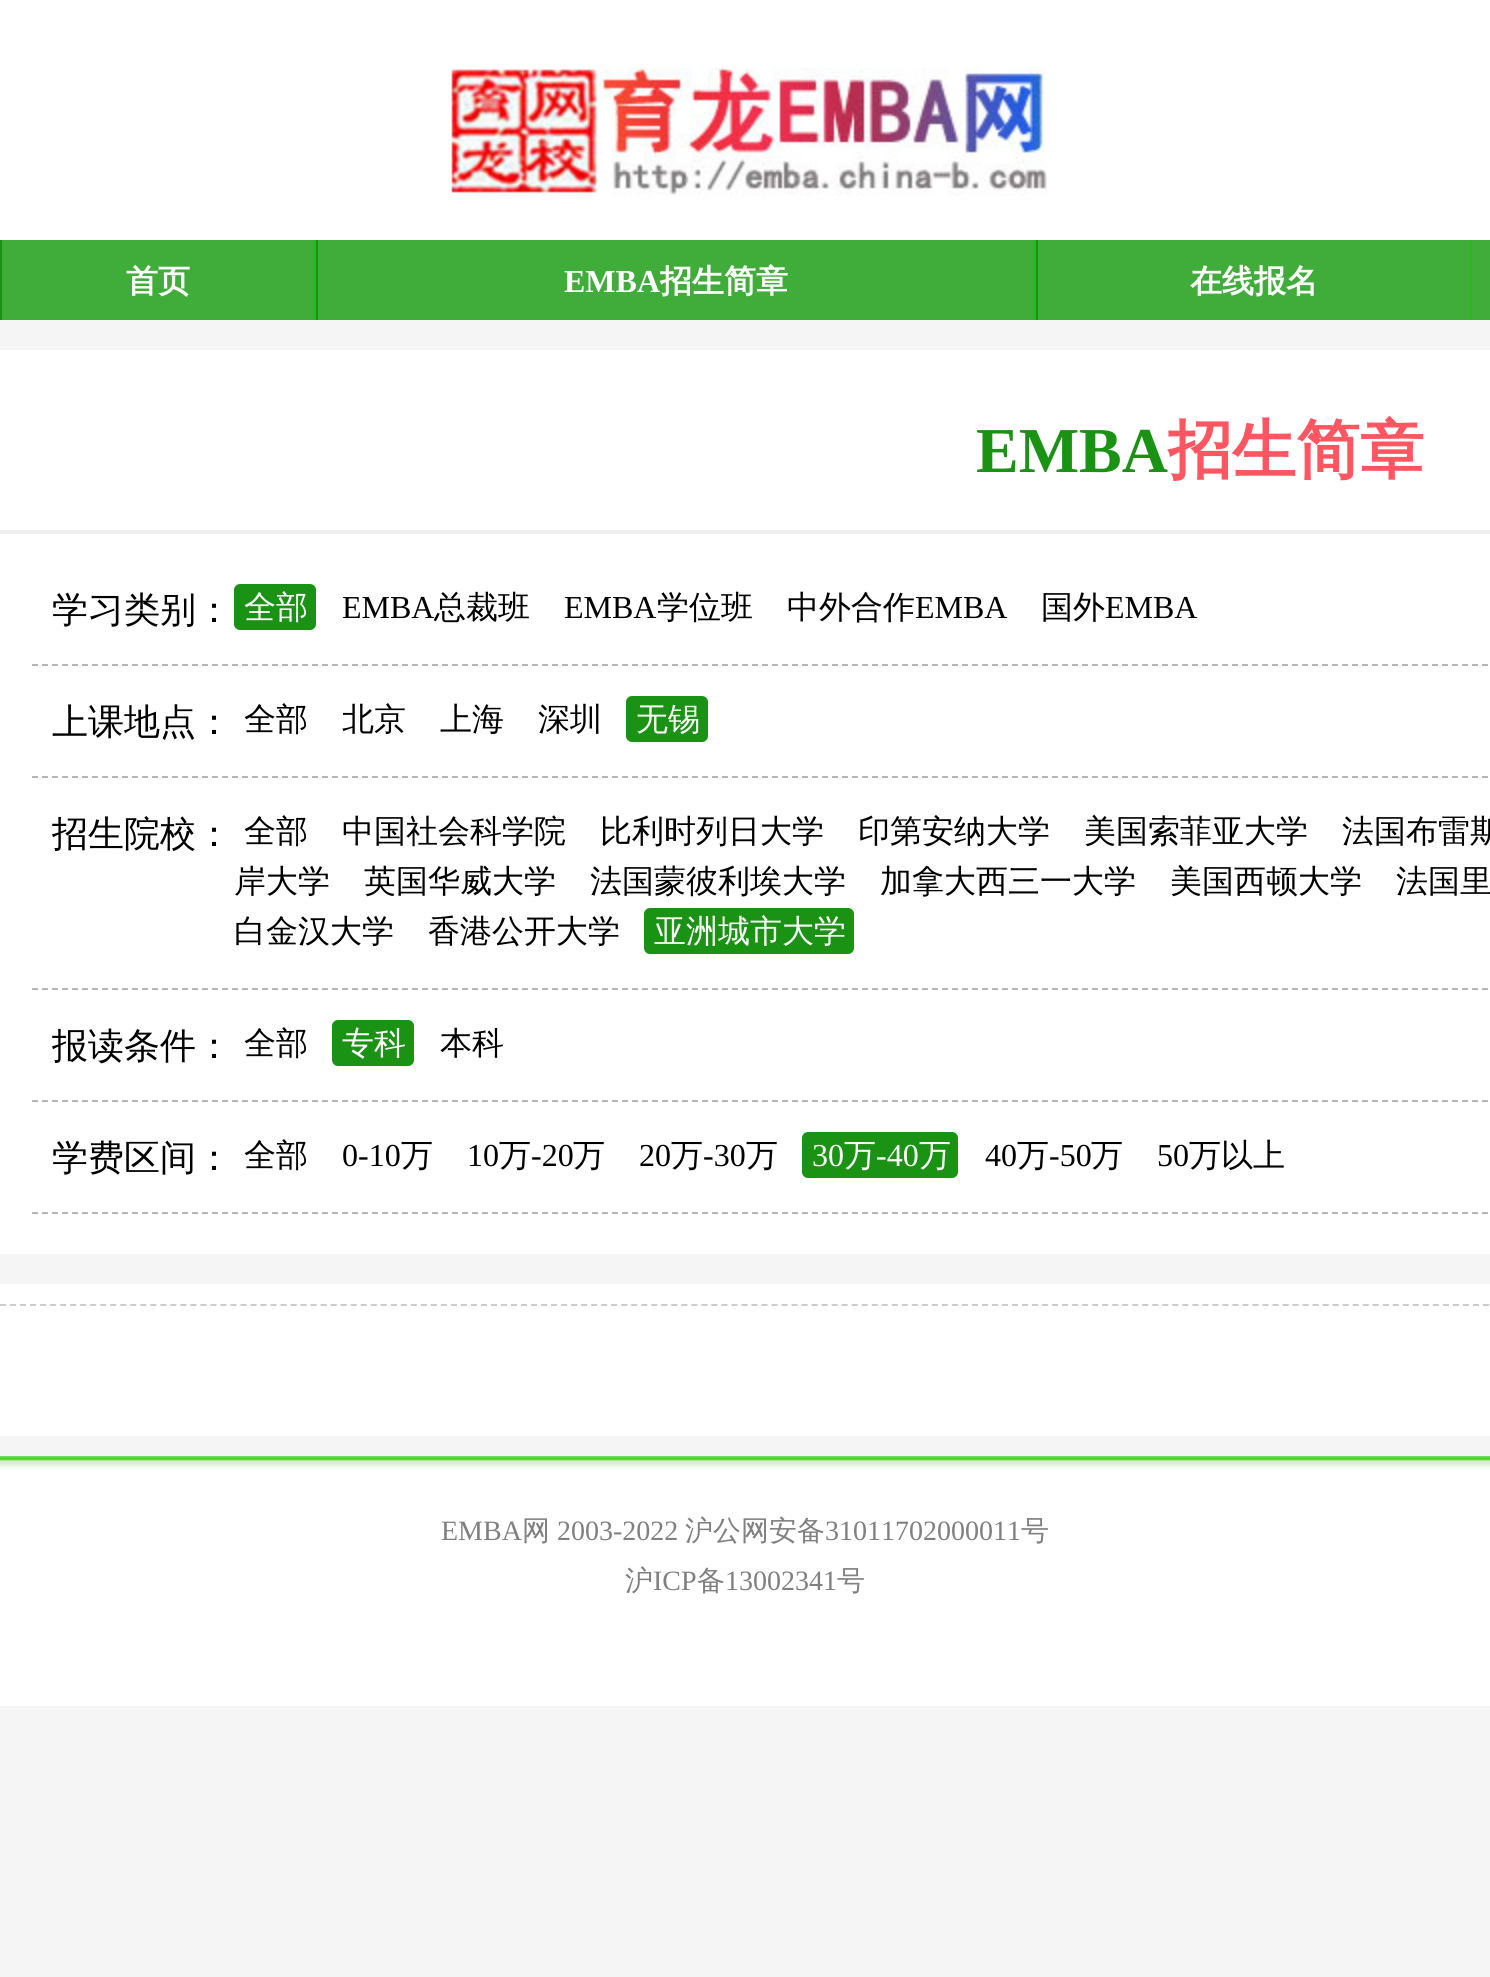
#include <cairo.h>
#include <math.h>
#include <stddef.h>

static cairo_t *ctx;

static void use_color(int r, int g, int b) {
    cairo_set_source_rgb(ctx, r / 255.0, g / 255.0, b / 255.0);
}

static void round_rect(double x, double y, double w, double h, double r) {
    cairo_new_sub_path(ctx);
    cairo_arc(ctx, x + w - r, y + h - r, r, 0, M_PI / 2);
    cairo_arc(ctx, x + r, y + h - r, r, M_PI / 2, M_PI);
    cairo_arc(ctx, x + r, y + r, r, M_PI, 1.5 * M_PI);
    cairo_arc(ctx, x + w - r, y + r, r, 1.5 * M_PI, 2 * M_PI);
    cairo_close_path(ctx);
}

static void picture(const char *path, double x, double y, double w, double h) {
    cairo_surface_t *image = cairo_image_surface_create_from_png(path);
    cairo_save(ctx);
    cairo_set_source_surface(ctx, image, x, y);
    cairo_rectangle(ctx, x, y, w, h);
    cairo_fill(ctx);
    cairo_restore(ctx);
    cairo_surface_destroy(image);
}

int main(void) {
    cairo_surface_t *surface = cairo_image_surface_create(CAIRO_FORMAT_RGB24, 1490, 1977);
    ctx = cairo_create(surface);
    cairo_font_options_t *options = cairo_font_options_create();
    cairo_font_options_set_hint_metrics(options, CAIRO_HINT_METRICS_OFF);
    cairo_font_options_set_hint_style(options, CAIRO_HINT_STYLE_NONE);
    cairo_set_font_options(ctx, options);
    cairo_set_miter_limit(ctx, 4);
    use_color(245, 245, 245);
    cairo_paint(ctx);
    use_color(255, 255, 255);
    cairo_rectangle(ctx, 0, 0, 1490, 240);
    cairo_fill(ctx);
    picture("img1.png", 451, 67, 596, 129);
    use_color(64, 173, 58);
    cairo_rectangle(ctx, 2, 240, 1488, 80);
    cairo_fill(ctx);
    use_color(31, 193, 22);
    cairo_rectangle(ctx, 314, 240, 2, 80);
    cairo_fill(ctx);
    use_color(26, 146, 19);
    cairo_rectangle(ctx, 0, 240, 2, 80);
    cairo_fill(ctx);
    cairo_select_font_face(ctx, "WenQuanYi Zen Hei", CAIRO_FONT_SLANT_NORMAL, CAIRO_FONT_WEIGHT_BOLD);
    cairo_set_font_size(ctx, 32);
    use_color(255, 255, 255);
    cairo_move_to(ctx, 126, 292);
    cairo_show_text(ctx, "首页");
    use_color(31, 193, 22);
    cairo_rectangle(ctx, 1034, 240, 2, 80);
    cairo_fill(ctx);
    use_color(26, 146, 19);
    cairo_rectangle(ctx, 316, 240, 2, 80);
    cairo_fill(ctx);
    cairo_select_font_face(ctx, "Liberation Serif", CAIRO_FONT_SLANT_NORMAL, CAIRO_FONT_WEIGHT_BOLD);
    use_color(255, 255, 255);
    cairo_move_to(ctx, 564, 292);
    cairo_show_text(ctx, "EMBA");
    cairo_select_font_face(ctx, "WenQuanYi Zen Hei", CAIRO_FONT_SLANT_NORMAL, CAIRO_FONT_WEIGHT_BOLD);
    cairo_move_to(ctx, 660, 292);
    cairo_show_text(ctx, "招生简章");
    use_color(31, 193, 22);
    cairo_rectangle(ctx, 1470, 240, 2, 80);
    cairo_fill(ctx);
    use_color(26, 146, 19);
    cairo_rectangle(ctx, 1036, 240, 2, 80);
    cairo_fill(ctx);
    use_color(255, 255, 255);
    cairo_move_to(ctx, 1190, 292);
    cairo_show_text(ctx, "在线报名");
    cairo_rectangle(ctx, 0, 350, 1490, 1086);
    cairo_fill(ctx);
    use_color(238, 238, 238);
    cairo_rectangle(ctx, 0, 530, 1490, 4);
    cairo_fill(ctx);
    cairo_select_font_face(ctx, "Liberation Serif", CAIRO_FONT_SLANT_NORMAL, CAIRO_FONT_WEIGHT_BOLD);
    cairo_set_font_size(ctx, 64);
    use_color(26, 146, 19);
    cairo_move_to(ctx, 976, 472);
    cairo_show_text(ctx, "EMBA");
    cairo_select_font_face(ctx, "WenQuanYi Zen Hei", CAIRO_FONT_SLANT_NORMAL, CAIRO_FONT_WEIGHT_BOLD);
    use_color(255, 86, 97);
    cairo_move_to(ctx, 1168, 472);
    cairo_show_text(ctx, "招生简章");
    use_color(245, 245, 245);
    cairo_rectangle(ctx, 0, 1254, 1490, 30);
    cairo_fill(ctx);
    cairo_new_path(ctx);
    cairo_move_to(ctx, 32, 665);
    cairo_line_to(ctx, 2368, 665);
    use_color(183, 183, 183);
    cairo_set_dash(ctx, (double[]){6, 4}, 2, 0);
    cairo_stroke(ctx);
    cairo_select_font_face(ctx, "WenQuanYi Zen Hei Medium", CAIRO_FONT_SLANT_NORMAL, CAIRO_FONT_WEIGHT_NORMAL);
    cairo_set_font_size(ctx, 36);
    use_color(0, 0, 0);
    cairo_move_to(ctx, 52, 622);
    cairo_show_text(ctx, "学习类别：");
    use_color(26, 146, 19);
    round_rect(234, 584, 82, 46, 6);
    cairo_fill(ctx);
    cairo_set_font_size(ctx, 32);
    use_color(255, 255, 255);
    cairo_move_to(ctx, 244, 618);
    cairo_show_text(ctx, "全部");
    cairo_select_font_face(ctx, "Liberation Serif", CAIRO_FONT_SLANT_NORMAL, CAIRO_FONT_WEIGHT_NORMAL);
    use_color(0, 0, 0);
    cairo_move_to(ctx, 342, 618);
    cairo_show_text(ctx, "EMBA");
    cairo_select_font_face(ctx, "WenQuanYi Zen Hei Medium", CAIRO_FONT_SLANT_NORMAL, CAIRO_FONT_WEIGHT_NORMAL);
    cairo_move_to(ctx, 434, 618);
    cairo_show_text(ctx, "总裁班");
    cairo_select_font_face(ctx, "Liberation Serif", CAIRO_FONT_SLANT_NORMAL, CAIRO_FONT_WEIGHT_NORMAL);
    cairo_move_to(ctx, 564, 618);
    cairo_show_text(ctx, "EMBA");
    cairo_select_font_face(ctx, "WenQuanYi Zen Hei Medium", CAIRO_FONT_SLANT_NORMAL, CAIRO_FONT_WEIGHT_NORMAL);
    cairo_move_to(ctx, 657, 618);
    cairo_show_text(ctx, "学位班");
    cairo_move_to(ctx, 787, 618);
    cairo_show_text(ctx, "中外合作");
    cairo_select_font_face(ctx, "Liberation Serif", CAIRO_FONT_SLANT_NORMAL, CAIRO_FONT_WEIGHT_NORMAL);
    cairo_move_to(ctx, 915, 618);
    cairo_show_text(ctx, "EMBA");
    cairo_select_font_face(ctx, "WenQuanYi Zen Hei Medium", CAIRO_FONT_SLANT_NORMAL, CAIRO_FONT_WEIGHT_NORMAL);
    cairo_move_to(ctx, 1041, 618);
    cairo_show_text(ctx, "国外");
    cairo_select_font_face(ctx, "Liberation Serif", CAIRO_FONT_SLANT_NORMAL, CAIRO_FONT_WEIGHT_NORMAL);
    cairo_move_to(ctx, 1105, 618);
    cairo_show_text(ctx, "EMBA");
    cairo_new_path(ctx);
    cairo_move_to(ctx, 32, 777);
    cairo_line_to(ctx, 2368, 777);
    use_color(183, 183, 183);
    cairo_stroke(ctx);
    cairo_select_font_face(ctx, "WenQuanYi Zen Hei Medium", CAIRO_FONT_SLANT_NORMAL, CAIRO_FONT_WEIGHT_NORMAL);
    cairo_set_font_size(ctx, 36);
    use_color(0, 0, 0);
    cairo_move_to(ctx, 52, 734);
    cairo_show_text(ctx, "上课地点：");
    cairo_set_font_size(ctx, 32);
    cairo_move_to(ctx, 244, 730);
    cairo_show_text(ctx, "全部");
    cairo_move_to(ctx, 342, 730);
    cairo_show_text(ctx, "北京");
    cairo_move_to(ctx, 440, 730);
    cairo_show_text(ctx, "上海");
    cairo_move_to(ctx, 538, 730);
    cairo_show_text(ctx, "深圳");
    use_color(26, 146, 19);
    round_rect(626, 696, 82, 46, 6);
    cairo_fill(ctx);
    use_color(255, 255, 255);
    cairo_move_to(ctx, 636, 730);
    cairo_show_text(ctx, "无锡");
    cairo_new_path(ctx);
    cairo_move_to(ctx, 32, 989);
    cairo_line_to(ctx, 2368, 989);
    use_color(183, 183, 183);
    cairo_stroke(ctx);
    cairo_set_font_size(ctx, 36);
    use_color(0, 0, 0);
    cairo_move_to(ctx, 52, 846);
    cairo_show_text(ctx, "招生院校：");
    cairo_set_font_size(ctx, 32);
    cairo_move_to(ctx, 244, 842);
    cairo_show_text(ctx, "全部");
    cairo_move_to(ctx, 342, 842);
    cairo_show_text(ctx, "中国社会科学院");
    cairo_move_to(ctx, 600, 842);
    cairo_show_text(ctx, "比利时列日大学");
    cairo_move_to(ctx, 858, 842);
    cairo_show_text(ctx, "印第安纳大学");
    cairo_move_to(ctx, 1084, 842);
    cairo_show_text(ctx, "美国索菲亚大学");
    cairo_move_to(ctx, 1342, 842);
    cairo_show_text(ctx, "法国布雷斯");
    cairo_move_to(ctx, 234, 892);
    cairo_show_text(ctx, "岸大学");
    cairo_move_to(ctx, 364, 892);
    cairo_show_text(ctx, "英国华威大学");
    cairo_move_to(ctx, 590, 892);
    cairo_show_text(ctx, "法国蒙彼利埃大学");
    cairo_move_to(ctx, 880, 892);
    cairo_show_text(ctx, "加拿大西三一大学");
    cairo_move_to(ctx, 1170, 892);
    cairo_show_text(ctx, "美国西顿大学");
    cairo_move_to(ctx, 1396, 892);
    cairo_show_text(ctx, "法国里");
    cairo_move_to(ctx, 234, 942);
    cairo_show_text(ctx, "白金汉大学");
    cairo_move_to(ctx, 428, 942);
    cairo_show_text(ctx, "香港公开大学");
    use_color(26, 146, 19);
    round_rect(644, 908, 210, 46, 6);
    cairo_fill(ctx);
    use_color(255, 255, 255);
    cairo_move_to(ctx, 654, 942);
    cairo_show_text(ctx, "亚洲城市大学");
    cairo_new_path(ctx);
    cairo_move_to(ctx, 32, 1101);
    cairo_line_to(ctx, 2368, 1101);
    use_color(183, 183, 183);
    cairo_stroke(ctx);
    cairo_set_font_size(ctx, 36);
    use_color(0, 0, 0);
    cairo_move_to(ctx, 52, 1058);
    cairo_show_text(ctx, "报读条件：");
    cairo_set_font_size(ctx, 32);
    cairo_move_to(ctx, 244, 1054);
    cairo_show_text(ctx, "全部");
    use_color(26, 146, 19);
    round_rect(332, 1020, 82, 46, 6);
    cairo_fill(ctx);
    use_color(255, 255, 255);
    cairo_move_to(ctx, 342, 1054);
    cairo_show_text(ctx, "专科");
    use_color(0, 0, 0);
    cairo_move_to(ctx, 440, 1054);
    cairo_show_text(ctx, "本科");
    cairo_new_path(ctx);
    cairo_move_to(ctx, 32, 1213);
    cairo_line_to(ctx, 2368, 1213);
    use_color(183, 183, 183);
    cairo_stroke(ctx);
    cairo_set_font_size(ctx, 36);
    use_color(0, 0, 0);
    cairo_move_to(ctx, 52, 1170);
    cairo_show_text(ctx, "学费区间：");
    cairo_set_font_size(ctx, 32);
    cairo_move_to(ctx, 244, 1166);
    cairo_show_text(ctx, "全部");
    cairo_select_font_face(ctx, "Liberation Serif", CAIRO_FONT_SLANT_NORMAL, CAIRO_FONT_WEIGHT_NORMAL);
    cairo_move_to(ctx, 342, 1166);
    cairo_show_text(ctx, "0-10");
    cairo_select_font_face(ctx, "WenQuanYi Zen Hei Medium", CAIRO_FONT_SLANT_NORMAL, CAIRO_FONT_WEIGHT_NORMAL);
    cairo_move_to(ctx, 401, 1166);
    cairo_show_text(ctx, "万");
    cairo_select_font_face(ctx, "Liberation Serif", CAIRO_FONT_SLANT_NORMAL, CAIRO_FONT_WEIGHT_NORMAL);
    cairo_move_to(ctx, 467, 1166);
    cairo_show_text(ctx, "10");
    cairo_select_font_face(ctx, "WenQuanYi Zen Hei Medium", CAIRO_FONT_SLANT_NORMAL, CAIRO_FONT_WEIGHT_NORMAL);
    cairo_move_to(ctx, 499, 1166);
    cairo_show_text(ctx, "万");
    cairo_select_font_face(ctx, "Liberation Serif", CAIRO_FONT_SLANT_NORMAL, CAIRO_FONT_WEIGHT_NORMAL);
    cairo_move_to(ctx, 531, 1166);
    cairo_show_text(ctx, "-20");
    cairo_select_font_face(ctx, "WenQuanYi Zen Hei Medium", CAIRO_FONT_SLANT_NORMAL, CAIRO_FONT_WEIGHT_NORMAL);
    cairo_move_to(ctx, 573, 1166);
    cairo_show_text(ctx, "万");
    cairo_select_font_face(ctx, "Liberation Serif", CAIRO_FONT_SLANT_NORMAL, CAIRO_FONT_WEIGHT_NORMAL);
    cairo_move_to(ctx, 639, 1166);
    cairo_show_text(ctx, "20");
    cairo_select_font_face(ctx, "WenQuanYi Zen Hei Medium", CAIRO_FONT_SLANT_NORMAL, CAIRO_FONT_WEIGHT_NORMAL);
    cairo_move_to(ctx, 671, 1166);
    cairo_show_text(ctx, "万");
    cairo_select_font_face(ctx, "Liberation Serif", CAIRO_FONT_SLANT_NORMAL, CAIRO_FONT_WEIGHT_NORMAL);
    cairo_move_to(ctx, 703, 1166);
    cairo_show_text(ctx, "-30");
    cairo_select_font_face(ctx, "WenQuanYi Zen Hei Medium", CAIRO_FONT_SLANT_NORMAL, CAIRO_FONT_WEIGHT_NORMAL);
    cairo_move_to(ctx, 746, 1166);
    cairo_show_text(ctx, "万");
    use_color(26, 146, 19);
    round_rect(802, 1132, 156, 46, 6);
    cairo_fill(ctx);
    cairo_select_font_face(ctx, "Liberation Serif", CAIRO_FONT_SLANT_NORMAL, CAIRO_FONT_WEIGHT_NORMAL);
    use_color(255, 255, 255);
    cairo_move_to(ctx, 812, 1166);
    cairo_show_text(ctx, "30");
    cairo_select_font_face(ctx, "WenQuanYi Zen Hei Medium", CAIRO_FONT_SLANT_NORMAL, CAIRO_FONT_WEIGHT_NORMAL);
    cairo_move_to(ctx, 844, 1166);
    cairo_show_text(ctx, "万");
    cairo_select_font_face(ctx, "Liberation Serif", CAIRO_FONT_SLANT_NORMAL, CAIRO_FONT_WEIGHT_NORMAL);
    cairo_move_to(ctx, 876, 1166);
    cairo_show_text(ctx, "-40");
    cairo_select_font_face(ctx, "WenQuanYi Zen Hei Medium", CAIRO_FONT_SLANT_NORMAL, CAIRO_FONT_WEIGHT_NORMAL);
    cairo_move_to(ctx, 919, 1166);
    cairo_show_text(ctx, "万");
    cairo_select_font_face(ctx, "Liberation Serif", CAIRO_FONT_SLANT_NORMAL, CAIRO_FONT_WEIGHT_NORMAL);
    use_color(0, 0, 0);
    cairo_move_to(ctx, 985, 1166);
    cairo_show_text(ctx, "40");
    cairo_select_font_face(ctx, "WenQuanYi Zen Hei Medium", CAIRO_FONT_SLANT_NORMAL, CAIRO_FONT_WEIGHT_NORMAL);
    cairo_move_to(ctx, 1017, 1166);
    cairo_show_text(ctx, "万");
    cairo_select_font_face(ctx, "Liberation Serif", CAIRO_FONT_SLANT_NORMAL, CAIRO_FONT_WEIGHT_NORMAL);
    cairo_move_to(ctx, 1049, 1166);
    cairo_show_text(ctx, "-50");
    cairo_select_font_face(ctx, "WenQuanYi Zen Hei Medium", CAIRO_FONT_SLANT_NORMAL, CAIRO_FONT_WEIGHT_NORMAL);
    cairo_move_to(ctx, 1091, 1166);
    cairo_show_text(ctx, "万");
    cairo_select_font_face(ctx, "Liberation Serif", CAIRO_FONT_SLANT_NORMAL, CAIRO_FONT_WEIGHT_NORMAL);
    cairo_move_to(ctx, 1157, 1166);
    cairo_show_text(ctx, "50");
    cairo_select_font_face(ctx, "WenQuanYi Zen Hei Medium", CAIRO_FONT_SLANT_NORMAL, CAIRO_FONT_WEIGHT_NORMAL);
    cairo_move_to(ctx, 1189, 1166);
    cairo_show_text(ctx, "万以上");
    cairo_new_path(ctx);
    cairo_move_to(ctx, 0, 1305);
    cairo_line_to(ctx, 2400, 1305);
    use_color(204, 204, 204);
    cairo_set_dash(ctx, (double[]){6, 4.02}, 2, 0);
    cairo_stroke(ctx);
    use_color(255, 255, 255);
    cairo_rectangle(ctx, 0, 1469, 1490, 237);
    cairo_fill(ctx);
    picture("img2.png", 0, 1456, 1490, 13);
    cairo_select_font_face(ctx, "Liberation Serif", CAIRO_FONT_SLANT_NORMAL, CAIRO_FONT_WEIGHT_NORMAL);
    cairo_set_font_size(ctx, 28);
    use_color(128, 128, 128);
    cairo_move_to(ctx, 441, 1540);
    cairo_show_text(ctx, "EMBA");
    cairo_select_font_face(ctx, "WenQuanYi Zen Hei Medium", CAIRO_FONT_SLANT_NORMAL, CAIRO_FONT_WEIGHT_NORMAL);
    cairo_move_to(ctx, 522, 1540);
    cairo_show_text(ctx, "网");
    cairo_select_font_face(ctx, "Liberation Serif", CAIRO_FONT_SLANT_NORMAL, CAIRO_FONT_WEIGHT_NORMAL);
    cairo_move_to(ctx, 557, 1540);
    cairo_show_text(ctx, "2003-2022");
    cairo_select_font_face(ctx, "WenQuanYi Zen Hei Medium", CAIRO_FONT_SLANT_NORMAL, CAIRO_FONT_WEIGHT_NORMAL);
    cairo_move_to(ctx, 685, 1540);
    cairo_show_text(ctx, "沪公网安备");
    cairo_select_font_face(ctx, "Liberation Serif", CAIRO_FONT_SLANT_NORMAL, CAIRO_FONT_WEIGHT_NORMAL);
    cairo_move_to(ctx, 825, 1540);
    cairo_show_text(ctx, "31011702000011");
    cairo_select_font_face(ctx, "WenQuanYi Zen Hei Medium", CAIRO_FONT_SLANT_NORMAL, CAIRO_FONT_WEIGHT_NORMAL);
    cairo_move_to(ctx, 1021, 1540);
    cairo_show_text(ctx, "号");
    cairo_move_to(ctx, 625, 1590);
    cairo_show_text(ctx, "沪");
    cairo_select_font_face(ctx, "Liberation Serif", CAIRO_FONT_SLANT_NORMAL, CAIRO_FONT_WEIGHT_NORMAL);
    cairo_move_to(ctx, 653, 1590);
    cairo_show_text(ctx, "ICP");
    cairo_select_font_face(ctx, "WenQuanYi Zen Hei Medium", CAIRO_FONT_SLANT_NORMAL, CAIRO_FONT_WEIGHT_NORMAL);
    cairo_move_to(ctx, 697, 1590);
    cairo_show_text(ctx, "备");
    cairo_select_font_face(ctx, "Liberation Serif", CAIRO_FONT_SLANT_NORMAL, CAIRO_FONT_WEIGHT_NORMAL);
    cairo_move_to(ctx, 725, 1590);
    cairo_show_text(ctx, "13002341");
    cairo_select_font_face(ctx, "WenQuanYi Zen Hei Medium", CAIRO_FONT_SLANT_NORMAL, CAIRO_FONT_WEIGHT_NORMAL);
    cairo_move_to(ctx, 837, 1590);
    cairo_show_text(ctx, "号");
    cairo_surface_write_to_png(surface, "result.png");
    cairo_font_options_destroy(options);
    cairo_destroy(ctx);
    cairo_surface_destroy(surface);
    return 0;
}
